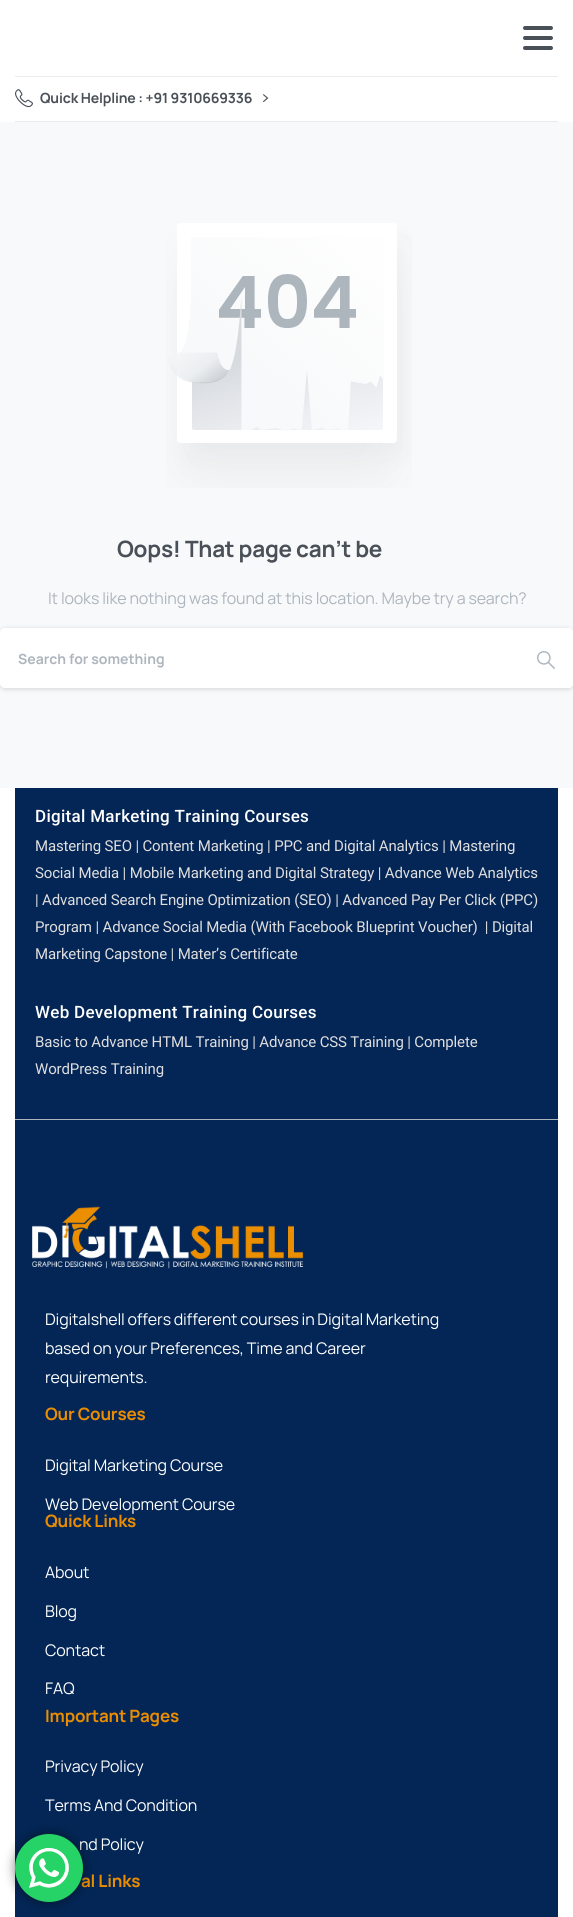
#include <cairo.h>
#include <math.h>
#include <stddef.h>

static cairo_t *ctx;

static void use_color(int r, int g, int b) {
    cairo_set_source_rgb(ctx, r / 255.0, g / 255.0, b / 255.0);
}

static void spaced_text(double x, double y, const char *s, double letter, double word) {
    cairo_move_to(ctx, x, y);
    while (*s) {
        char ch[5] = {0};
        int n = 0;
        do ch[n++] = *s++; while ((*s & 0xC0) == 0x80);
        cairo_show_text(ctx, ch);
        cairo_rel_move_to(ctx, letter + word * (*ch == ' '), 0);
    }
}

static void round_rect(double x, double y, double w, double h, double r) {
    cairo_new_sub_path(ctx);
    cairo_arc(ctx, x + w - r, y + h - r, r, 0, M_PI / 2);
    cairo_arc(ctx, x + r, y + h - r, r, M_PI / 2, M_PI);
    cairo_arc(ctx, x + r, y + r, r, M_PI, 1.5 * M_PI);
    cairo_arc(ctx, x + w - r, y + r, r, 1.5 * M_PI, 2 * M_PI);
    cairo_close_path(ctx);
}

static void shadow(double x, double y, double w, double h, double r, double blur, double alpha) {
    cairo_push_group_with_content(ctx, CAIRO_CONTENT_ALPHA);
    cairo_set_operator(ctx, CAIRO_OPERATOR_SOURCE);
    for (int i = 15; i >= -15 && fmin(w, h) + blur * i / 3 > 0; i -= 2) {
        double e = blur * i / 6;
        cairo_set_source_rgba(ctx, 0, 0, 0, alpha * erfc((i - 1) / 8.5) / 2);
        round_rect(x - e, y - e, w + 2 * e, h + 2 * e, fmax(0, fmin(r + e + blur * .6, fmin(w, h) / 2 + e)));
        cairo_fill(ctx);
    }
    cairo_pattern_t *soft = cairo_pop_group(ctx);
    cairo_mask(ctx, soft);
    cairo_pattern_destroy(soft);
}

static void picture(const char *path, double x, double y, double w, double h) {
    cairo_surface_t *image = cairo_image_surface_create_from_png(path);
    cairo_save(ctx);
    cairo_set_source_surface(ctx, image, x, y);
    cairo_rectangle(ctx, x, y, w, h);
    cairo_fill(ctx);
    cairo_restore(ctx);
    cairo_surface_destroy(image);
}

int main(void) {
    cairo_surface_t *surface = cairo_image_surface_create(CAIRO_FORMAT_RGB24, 573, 1917);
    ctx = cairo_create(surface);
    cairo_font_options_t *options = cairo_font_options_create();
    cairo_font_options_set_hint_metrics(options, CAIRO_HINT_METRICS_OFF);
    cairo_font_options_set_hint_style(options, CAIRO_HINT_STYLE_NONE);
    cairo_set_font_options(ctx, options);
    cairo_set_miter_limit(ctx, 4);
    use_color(255, 255, 255);
    cairo_paint(ctx);
    use_color(73, 80, 87);
    round_rect(523, 36, 30, 4, 2);
    cairo_fill(ctx);
    round_rect(523, 26, 30, 4, 2);
    cairo_fill(ctx);
    round_rect(523, 46, 30, 4, 2);
    cairo_fill(ctx);
    use_color(233, 236, 239);
    cairo_rectangle(ctx, 15, 76, 543, 1);
    cairo_fill(ctx);
    picture("img1.png", 15, 89, 18, 19);
    cairo_select_font_face(ctx, "Manrope", CAIRO_FONT_SLANT_NORMAL, CAIRO_FONT_WEIGHT_BOLD);
    cairo_set_font_size(ctx, 14);
    use_color(73, 80, 87);
    spaced_text(40, 103, "Quick Helpline : +91 9310669336", -0.15, 0);
    picture("img2.png", 263, 94, 6, 8);
    use_color(233, 236, 239);
    cairo_rectangle(ctx, 15, 121, 543, 1);
    cairo_fill(ctx);
    use_color(248, 249, 250);
    cairo_rectangle(ctx, 0, 122, 573, 666);
    cairo_fill(ctx);
    picture("img3.png", 166, 223, 246, 265);
    cairo_set_font_size(ctx, 22.5);
    use_color(73, 80, 87);
    spaced_text(117, 557, "Oops! That page can’t be", -0.25, 0);
    cairo_select_font_face(ctx, "Manrope", CAIRO_FONT_SLANT_NORMAL, CAIRO_FONT_WEIGHT_NORMAL);
    cairo_set_font_size(ctx, 16);
    use_color(173, 181, 189);
    spaced_text(48, 604, "It looks like nothing was found at this location. Maybe try a search?", -0.15, 0);
    use_color(0, 0, 0);
    shadow(0, 629, 573, 60, 5, 2.5, 0.15);
    use_color(255, 255, 255);
    cairo_new_path(ctx);
    cairo_move_to(ctx, 5, 628);
    cairo_line_to(ctx, 519, 628);
    cairo_line_to(ctx, 519, 688);
    cairo_line_to(ctx, 5, 688);
    cairo_curve_to(ctx, 2, 688, 0, 686, 0, 683);
    cairo_line_to(ctx, 0, 633);
    cairo_curve_to(ctx, 0, 630, 2, 628, 5, 628);
    cairo_close_path(ctx);
    cairo_fill(ctx);
    cairo_select_font_face(ctx, "Manrope", CAIRO_FONT_SLANT_NORMAL, CAIRO_FONT_WEIGHT_BOLD);
    cairo_set_font_size(ctx, 14);
    use_color(173, 181, 189);
    cairo_move_to(ctx, 18, 664);
    cairo_show_text(ctx, "Search for something");
    use_color(255, 255, 255);
    cairo_new_path(ctx);
    cairo_move_to(ctx, 519, 628);
    cairo_line_to(ctx, 569, 628);
    cairo_curve_to(ctx, 571, 628, 573, 630, 573, 632);
    cairo_line_to(ctx, 573, 684);
    cairo_curve_to(ctx, 573, 686, 571, 688, 569, 688);
    cairo_line_to(ctx, 519, 688);
    cairo_close_path(ctx);
    cairo_fill(ctx);
    picture("img4.png", 537, 651, 18, 18);
    use_color(3, 38, 86);
    cairo_rectangle(ctx, 15, 788, 543, 331);
    cairo_fill(ctx);
    cairo_select_font_face(ctx, "Roboto Medium", CAIRO_FONT_SLANT_NORMAL, CAIRO_FONT_WEIGHT_NORMAL);
    cairo_set_font_size(ctx, 17);
    use_color(255, 255, 255);
    spaced_text(35, 822, "Digital Marketing Training Courses", 0.3, 0);
    cairo_select_font_face(ctx, "Roboto", CAIRO_FONT_SLANT_NORMAL, CAIRO_FONT_WEIGHT_NORMAL);
    cairo_set_font_size(ctx, 15);
    use_color(224, 222, 222);
    spaced_text(35, 851, "Mastering SEO | Content Marketing | PPC and Digital Analytics | Mastering", -0.15, 0);
    spaced_text(35, 878, "Social Media | Mobile Marketing and Digital Strategy | Advance Web Analytics", -0.15, 0);
    spaced_text(35, 905, "| Advanced Search Engine Optimization (SEO) | Advanced Pay Per Click (PPC)", -0.15, 0);
    spaced_text(35, 932, "Program | Advance Social Media (With Facebook Blueprint Voucher)  | Digital", -0.15, 0);
    spaced_text(35, 959, "Marketing Capstone | Mater’s Certificate", -0.15, 0);
    cairo_select_font_face(ctx, "Roboto Medium", CAIRO_FONT_SLANT_NORMAL, CAIRO_FONT_WEIGHT_NORMAL);
    cairo_set_font_size(ctx, 17);
    use_color(255, 255, 255);
    spaced_text(35, 1018, "Web Development Training Courses", 0.3, 0);
    cairo_select_font_face(ctx, "Roboto", CAIRO_FONT_SLANT_NORMAL, CAIRO_FONT_WEIGHT_NORMAL);
    cairo_set_font_size(ctx, 15);
    use_color(224, 222, 222);
    spaced_text(35, 1047, "Basic to Advance HTML Training | Advance CSS Training | Complete", -0.15, 0);
    spaced_text(35, 1074, "WordPress Training", -0.15, 0);
    use_color(3, 38, 86);
    cairo_rectangle(ctx, 15, 1120, 543, 797);
    cairo_fill(ctx);
    use_color(173, 181, 189);
    cairo_rectangle(ctx, 15, 1119, 543, 1);
    cairo_fill(ctx);
    picture("img5.png", 32, 1206, 272, 63);
    cairo_select_font_face(ctx, "Manrope", CAIRO_FONT_SLANT_NORMAL, CAIRO_FONT_WEIGHT_NORMAL);
    cairo_set_font_size(ctx, 16);
    use_color(255, 255, 255);
    spaced_text(45, 1325, "Digitalshell offers different courses in Digital Marketing", -0.15, -0.25);
    spaced_text(45, 1354, "based on your Preferences, Time and Career", -0.15, 0);
    spaced_text(45, 1383, "requirements.", -0.15, 0);
    cairo_select_font_face(ctx, "Manrope", CAIRO_FONT_SLANT_NORMAL, CAIRO_FONT_WEIGHT_BOLD);
    cairo_set_font_size(ctx, 17);
    use_color(235, 141, 0);
    spaced_text(45, 1420, "Our Courses", -0.2, 0);
    cairo_select_font_face(ctx, "Manrope", CAIRO_FONT_SLANT_NORMAL, CAIRO_FONT_WEIGHT_NORMAL);
    cairo_set_font_size(ctx, 16);
    use_color(255, 255, 255);
    spaced_text(45, 1471, "Digital Marketing Course", -0.15, 0);
    spaced_text(45, 1510, "Web Development Course", -0.15, 0);
    cairo_select_font_face(ctx, "Manrope", CAIRO_FONT_SLANT_NORMAL, CAIRO_FONT_WEIGHT_BOLD);
    cairo_set_font_size(ctx, 17);
    use_color(235, 141, 0);
    spaced_text(45, 1527, "Quick Links", -0.2, 0);
    cairo_select_font_face(ctx, "Manrope", CAIRO_FONT_SLANT_NORMAL, CAIRO_FONT_WEIGHT_NORMAL);
    cairo_set_font_size(ctx, 16);
    use_color(255, 255, 255);
    spaced_text(45, 1578, "About", -0.15, 0);
    spaced_text(45, 1617, "Blog", -0.15, 0);
    spaced_text(45, 1656, "Contact", -0.15, 0);
    spaced_text(45, 1694, "FAQ", -0.15, 0);
    cairo_select_font_face(ctx, "Manrope", CAIRO_FONT_SLANT_NORMAL, CAIRO_FONT_WEIGHT_BOLD);
    cairo_set_font_size(ctx, 17);
    use_color(235, 141, 0);
    spaced_text(45, 1722, "Important Pages", -0.2, 0);
    cairo_select_font_face(ctx, "Manrope", CAIRO_FONT_SLANT_NORMAL, CAIRO_FONT_WEIGHT_NORMAL);
    cairo_set_font_size(ctx, 16);
    use_color(255, 255, 255);
    spaced_text(45, 1772, "Privacy Policy", -0.15, 0);
    spaced_text(45, 1811, "Terms And Condition", -0.15, 0);
    spaced_text(79, 1850, "nd Policy", -0.15, 0);
    cairo_select_font_face(ctx, "Manrope", CAIRO_FONT_SLANT_NORMAL, CAIRO_FONT_WEIGHT_BOLD);
    cairo_set_font_size(ctx, 17);
    use_color(235, 141, 0);
    spaced_text(81, 1887, "al Links", -0.2, 0);
    use_color(0, 0, 0);
    shadow(15, 1834, 68, 68, 34, 5.5, 0.5);
    use_color(37, 211, 102);
    cairo_arc(ctx, 49, 1868, 34, 0, 2 * M_PI);
    cairo_fill(ctx);
    picture("img6.png", 29, 1848, 40, 40);
    cairo_surface_write_to_png(surface, "result.png");
    cairo_font_options_destroy(options);
    cairo_destroy(ctx);
    cairo_surface_destroy(surface);
    return 0;
}
